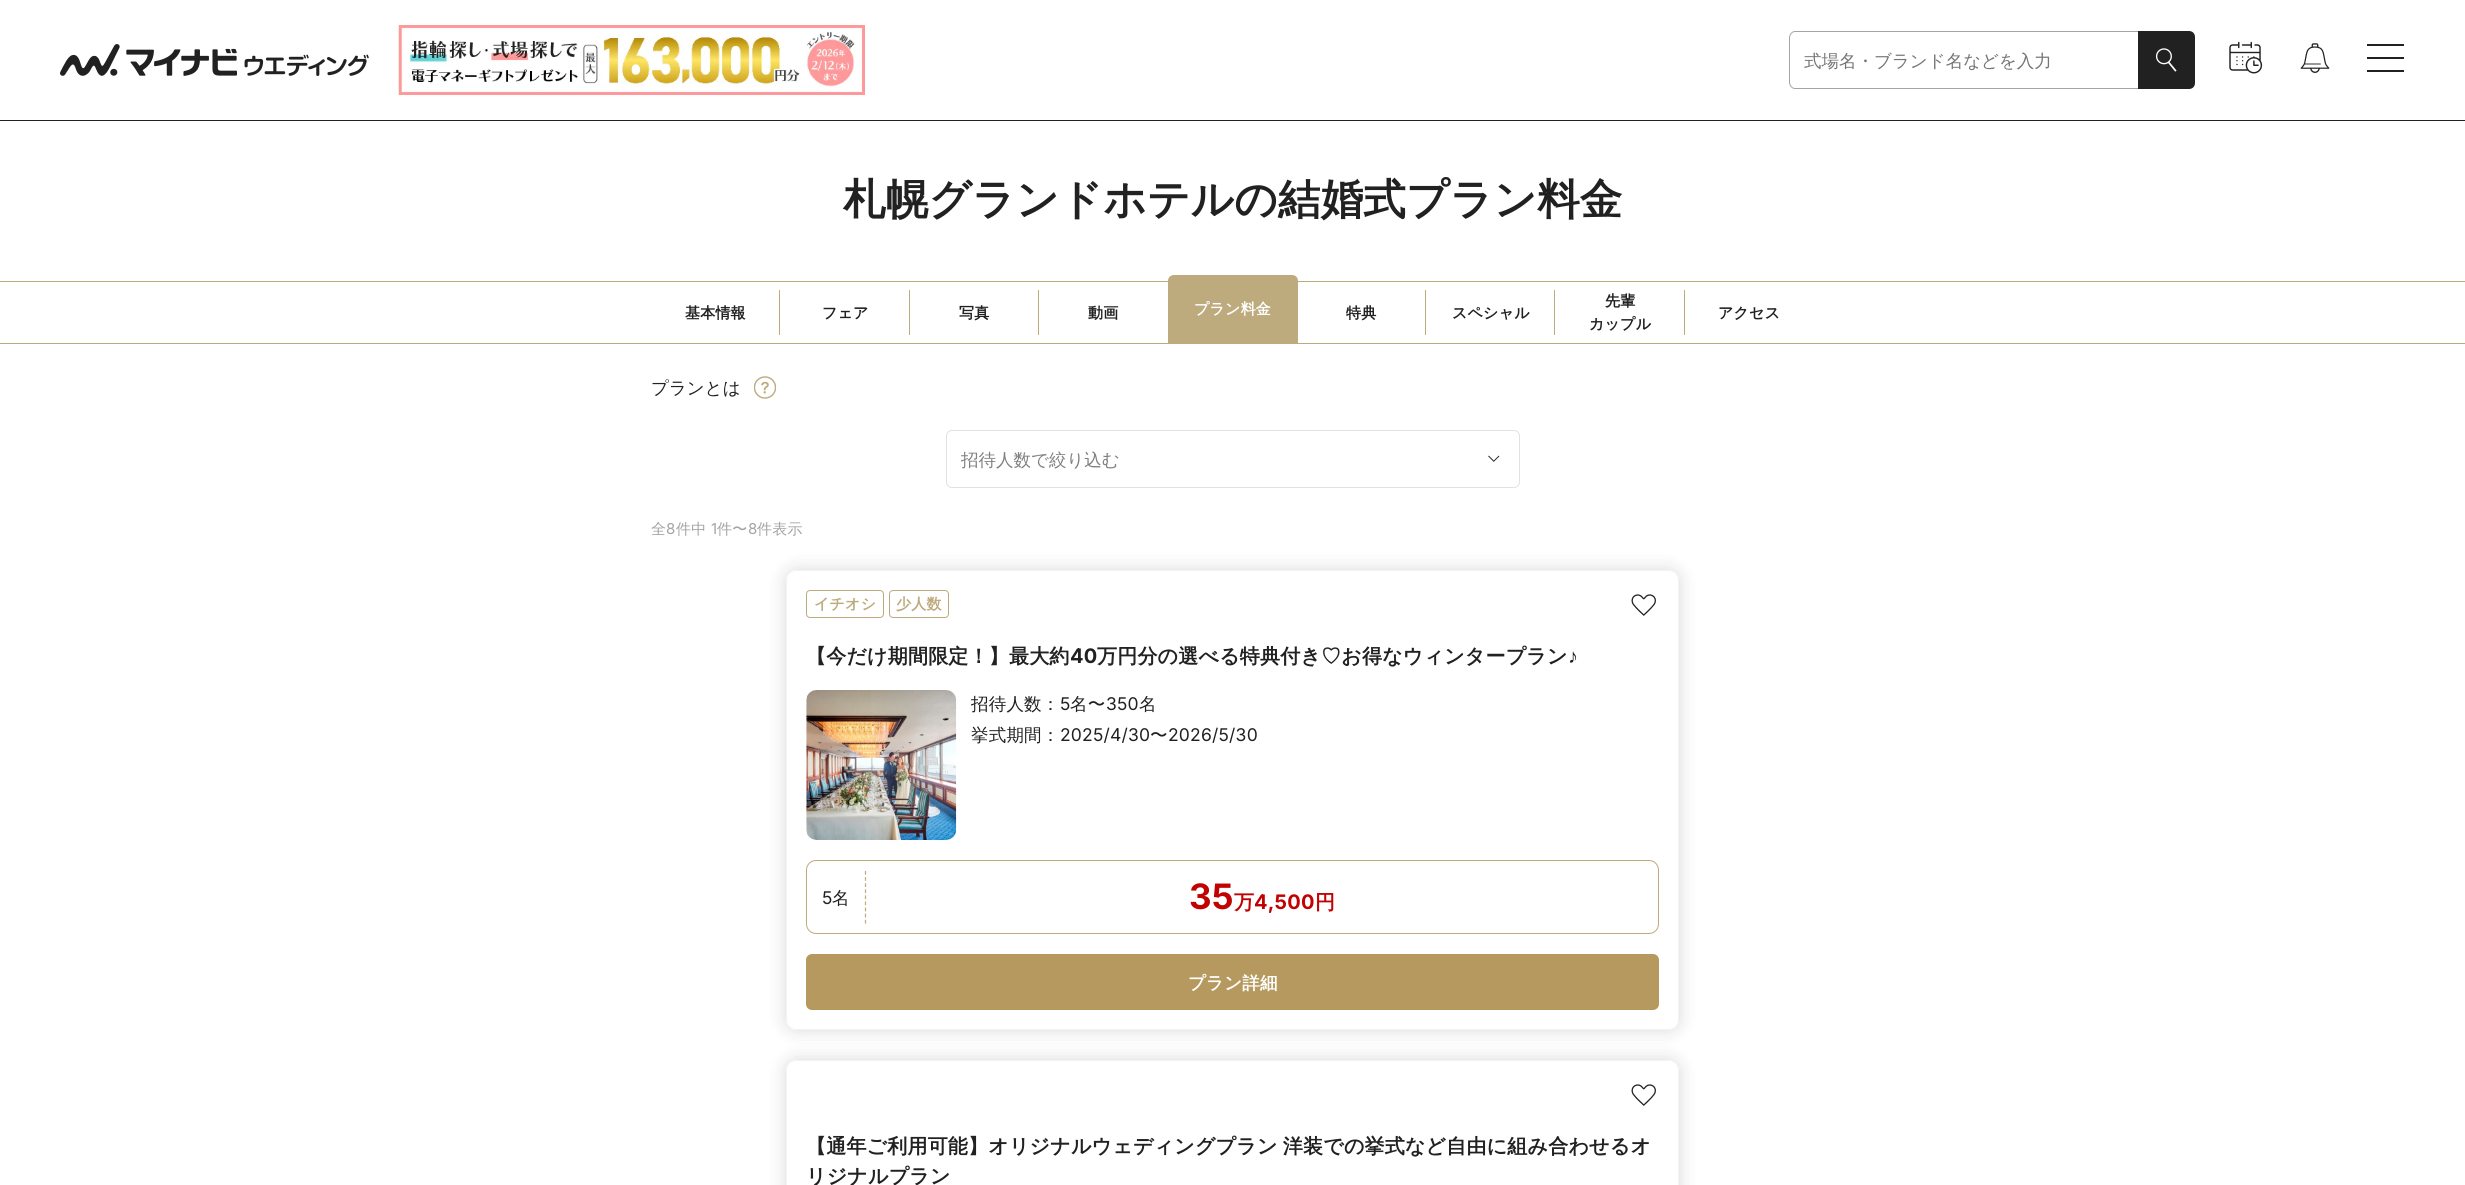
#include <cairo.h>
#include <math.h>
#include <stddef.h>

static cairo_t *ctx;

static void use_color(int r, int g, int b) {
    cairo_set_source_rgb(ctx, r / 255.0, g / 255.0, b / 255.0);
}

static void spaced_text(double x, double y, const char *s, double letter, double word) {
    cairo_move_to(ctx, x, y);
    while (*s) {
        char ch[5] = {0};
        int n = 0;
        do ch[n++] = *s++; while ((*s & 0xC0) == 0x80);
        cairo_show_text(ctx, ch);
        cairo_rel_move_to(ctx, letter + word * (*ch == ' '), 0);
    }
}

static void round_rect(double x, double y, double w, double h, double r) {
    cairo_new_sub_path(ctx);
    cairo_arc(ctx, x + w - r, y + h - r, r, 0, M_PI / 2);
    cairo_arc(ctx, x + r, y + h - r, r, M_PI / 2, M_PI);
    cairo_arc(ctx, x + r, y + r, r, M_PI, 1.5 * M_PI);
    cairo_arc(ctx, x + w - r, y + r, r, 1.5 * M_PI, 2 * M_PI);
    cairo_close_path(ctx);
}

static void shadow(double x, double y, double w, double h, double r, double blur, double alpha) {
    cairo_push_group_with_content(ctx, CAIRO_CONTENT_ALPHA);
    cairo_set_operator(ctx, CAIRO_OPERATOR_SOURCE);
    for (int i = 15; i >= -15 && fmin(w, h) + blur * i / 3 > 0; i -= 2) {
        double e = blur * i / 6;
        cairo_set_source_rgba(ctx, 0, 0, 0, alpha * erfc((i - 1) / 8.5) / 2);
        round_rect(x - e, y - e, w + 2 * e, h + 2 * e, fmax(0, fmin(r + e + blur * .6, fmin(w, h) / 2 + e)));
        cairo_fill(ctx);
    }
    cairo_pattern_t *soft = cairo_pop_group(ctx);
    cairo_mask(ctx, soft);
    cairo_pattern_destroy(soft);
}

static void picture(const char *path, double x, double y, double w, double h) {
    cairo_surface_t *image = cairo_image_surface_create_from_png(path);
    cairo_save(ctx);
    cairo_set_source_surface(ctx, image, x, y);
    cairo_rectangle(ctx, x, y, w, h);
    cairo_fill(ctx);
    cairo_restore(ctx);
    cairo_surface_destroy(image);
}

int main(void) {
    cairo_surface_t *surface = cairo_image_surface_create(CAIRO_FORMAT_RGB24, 2465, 1185);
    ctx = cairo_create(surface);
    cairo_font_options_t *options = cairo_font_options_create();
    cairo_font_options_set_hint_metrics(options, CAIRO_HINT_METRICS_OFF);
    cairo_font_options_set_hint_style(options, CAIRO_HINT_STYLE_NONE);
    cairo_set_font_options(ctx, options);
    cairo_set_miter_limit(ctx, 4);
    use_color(255, 255, 255);
    cairo_paint(ctx);
    use_color(33, 33, 33);
    cairo_rectangle(ctx, 0, 120, 2465, 1);
    cairo_fill(ctx);
    picture("img1.png", 60, 44, 309, 32);
    picture("img2.png", 398, 25, 467, 70);
    use_color(164, 164, 164);
    cairo_set_fill_rule(ctx, CAIRO_FILL_RULE_EVEN_ODD);
    cairo_new_path(ctx);
    cairo_move_to(ctx, 1795, 31);
    cairo_line_to(ctx, 2138, 31);
    cairo_line_to(ctx, 2138, 89);
    cairo_line_to(ctx, 1795, 89);
    cairo_curve_to(ctx, 1792, 89, 1789, 86, 1789, 82);
    cairo_line_to(ctx, 1789, 38);
    cairo_curve_to(ctx, 1789, 34, 1792, 31, 1795, 31);
    cairo_close_path(ctx);
    cairo_move_to(ctx, 1795, 32);
    cairo_line_to(ctx, 2138, 32);
    cairo_line_to(ctx, 2138, 88);
    cairo_line_to(ctx, 1795, 88);
    cairo_curve_to(ctx, 1792, 88, 1790, 85, 1790, 82);
    cairo_line_to(ctx, 1790, 38);
    cairo_curve_to(ctx, 1790, 35, 1792, 32, 1795, 32);
    cairo_close_path(ctx);
    cairo_fill(ctx);
    cairo_select_font_face(ctx, "WenQuanYi Zen Hei Medium", CAIRO_FONT_SLANT_NORMAL, CAIRO_FONT_WEIGHT_NORMAL);
    cairo_set_font_size(ctx, 17.5);
    use_color(117, 117, 117);
    cairo_move_to(ctx, 1804, 67);
    cairo_show_text(ctx, "式場名・ブランド名などを入力");
    use_color(33, 33, 33);
    cairo_new_path(ctx);
    cairo_move_to(ctx, 2138, 31);
    cairo_line_to(ctx, 2189, 31);
    cairo_curve_to(ctx, 2192.5, 31, 2195, 33.5, 2195, 37);
    cairo_line_to(ctx, 2195, 83);
    cairo_curve_to(ctx, 2195, 86.5, 2192.5, 89, 2189, 89);
    cairo_line_to(ctx, 2138, 89);
    cairo_close_path(ctx);
    cairo_fill(ctx);
    picture("img3.png", 2155, 48, 22, 24);
    picture("img4.png", 2229, 41, 34, 33);
    picture("img5.png", 2300, 43, 30, 30);
    cairo_rectangle(ctx, 2367, 44, 37, 2);
    cairo_fill(ctx);
    cairo_rectangle(ctx, 2367, 57, 37, 2);
    cairo_fill(ctx);
    cairo_rectangle(ctx, 2367, 70, 37, 2);
    cairo_fill(ctx);
    cairo_select_font_face(ctx, "WenQuanYi Zen Hei", CAIRO_FONT_SLANT_NORMAL, CAIRO_FONT_WEIGHT_BOLD);
    cairo_set_font_size(ctx, 42.5);
    spaced_text(843, 214, "札幌グランドホテルの結婚式プラン料金", 0.2, 0);
    use_color(189, 170, 125);
    cairo_rectangle(ctx, 0, 281, 2465, 1);
    cairo_fill(ctx);
    cairo_rectangle(ctx, 0, 343, 2465, 1);
    cairo_fill(ctx);
    cairo_set_font_size(ctx, 15);
    use_color(33, 33, 33);
    spaced_text(685, 318, "基本情報", 0.2, 0);
    use_color(189, 170, 125);
    cairo_rectangle(ctx, 779, 290, 1, 45);
    cairo_fill(ctx);
    use_color(33, 33, 33);
    spaced_text(822, 318, "フェア", 0.2, 0);
    use_color(189, 170, 125);
    cairo_rectangle(ctx, 909, 290, 1, 45);
    cairo_fill(ctx);
    use_color(33, 33, 33);
    spaced_text(959, 318, "写真", 0.2, 0);
    use_color(189, 170, 125);
    cairo_rectangle(ctx, 1038, 290, 1, 45);
    cairo_fill(ctx);
    use_color(33, 33, 33);
    spaced_text(1088, 318, "動画", 0.2, 0);
    use_color(189, 170, 125);
    cairo_new_path(ctx);
    cairo_move_to(ctx, 1174, 275);
    cairo_line_to(ctx, 1292, 275);
    cairo_curve_to(ctx, 1295.5, 275, 1298, 277.5, 1298, 281);
    cairo_line_to(ctx, 1298, 344);
    cairo_line_to(ctx, 1168, 344);
    cairo_line_to(ctx, 1168, 281);
    cairo_curve_to(ctx, 1168, 277.5, 1170.5, 275, 1174, 275);
    cairo_close_path(ctx);
    cairo_fill(ctx);
    use_color(255, 255, 255);
    spaced_text(1194, 314, "プラン料金", 0.2, 0);
    use_color(33, 33, 33);
    spaced_text(1346, 318, "特典", 0.2, 0);
    use_color(189, 170, 125);
    cairo_rectangle(ctx, 1425, 290, 1, 45);
    cairo_fill(ctx);
    use_color(33, 33, 33);
    spaced_text(1452, 318, "スペシャル", 0.2, 0);
    use_color(189, 170, 125);
    cairo_rectangle(ctx, 1554, 290, 1, 45);
    cairo_fill(ctx);
    use_color(33, 33, 33);
    spaced_text(1605, 306, "先輩", 0.2, 0);
    use_color(189, 170, 125);
    cairo_rectangle(ctx, 1684, 290, 1, 45);
    cairo_fill(ctx);
    use_color(33, 33, 33);
    spaced_text(1589, 329, "カップル", 0.2, 0);
    spaced_text(1718, 318, "アクセス", 0.2, 0);
    cairo_select_font_face(ctx, "WenQuanYi Zen Hei Medium", CAIRO_FONT_SLANT_NORMAL, CAIRO_FONT_WEIGHT_NORMAL);
    cairo_set_font_size(ctx, 17.5);
    cairo_move_to(ctx, 651, 394);
    cairo_show_text(ctx, "プランとは");
    picture("img6.png", 754, 376, 22, 23);
    round_rect(946.5, 430.5, 573, 57, 5.5);
    use_color(225, 225, 225);
    cairo_set_line_width(ctx, 1);
    cairo_stroke(ctx);
    cairo_save(ctx);
    cairo_set_fill_rule(ctx, CAIRO_FILL_RULE_WINDING);
    cairo_rectangle(ctx, 961, 446, 489, 27);
    cairo_clip(ctx);
    use_color(128, 128, 128);
    cairo_move_to(ctx, 961, 466);
    cairo_show_text(ctx, "招待人数で絞り込む");
    cairo_restore(ctx);
    picture("img7.png", 1488, 455, 12, 7);
    cairo_set_font_size(ctx, 15);
    use_color(164, 164, 164);
    spaced_text(651, 534, "全", 0.2, 0);
    cairo_select_font_face(ctx, "Inter", CAIRO_FONT_SLANT_NORMAL, CAIRO_FONT_WEIGHT_NORMAL);
    spaced_text(666, 534, "8", 0.2, 0);
    cairo_select_font_face(ctx, "WenQuanYi Zen Hei Medium", CAIRO_FONT_SLANT_NORMAL, CAIRO_FONT_WEIGHT_NORMAL);
    spaced_text(676, 534, "件中", 0.2, 0);
    cairo_select_font_face(ctx, "Inter", CAIRO_FONT_SLANT_NORMAL, CAIRO_FONT_WEIGHT_NORMAL);
    spaced_text(711, 534, "1", 0.2, 0);
    cairo_select_font_face(ctx, "WenQuanYi Zen Hei Medium", CAIRO_FONT_SLANT_NORMAL, CAIRO_FONT_WEIGHT_NORMAL);
    spaced_text(717, 534, "件〜", 0.2, 0);
    cairo_select_font_face(ctx, "Inter", CAIRO_FONT_SLANT_NORMAL, CAIRO_FONT_WEIGHT_NORMAL);
    spaced_text(748, 534, "8", 0.2, 0);
    cairo_select_font_face(ctx, "WenQuanYi Zen Hei Medium", CAIRO_FONT_SLANT_NORMAL, CAIRO_FONT_WEIGHT_NORMAL);
    spaced_text(757, 534, "件表示", 0.2, 0);
    use_color(0, 0, 0);
    shadow(786, 570, 893, 460, 10, 9.5, 0.15);
    use_color(255, 255, 255);
    round_rect(786.5, 570.5, 892, 459, 9.5);
    cairo_fill_preserve(ctx);
    use_color(244, 244, 244);
    cairo_stroke(ctx);
    round_rect(806.5, 590.5, 77, 27, 3.5);
    use_color(189, 170, 125);
    cairo_stroke(ctx);
    cairo_select_font_face(ctx, "WenQuanYi Zen Hei", CAIRO_FONT_SLANT_NORMAL, CAIRO_FONT_WEIGHT_BOLD);
    spaced_text(814, 609, "イチオシ", 0.2, 0);
    round_rect(889.5, 590.5, 59, 27, 3.5);
    cairo_stroke(ctx);
    spaced_text(896, 609, "少人数", 0.2, 0);
    picture("img8.png", 1631, 594, 25, 22);
    cairo_set_font_size(ctx, 20);
    use_color(33, 33, 33);
    spaced_text(806, 663, "【今だけ期間限定！】最大約", 0.2, 0);
    cairo_select_font_face(ctx, "Inter", CAIRO_FONT_SLANT_NORMAL, CAIRO_FONT_WEIGHT_BOLD);
    spaced_text(1070, 663, "40", 0.2, 0);
    cairo_select_font_face(ctx, "WenQuanYi Zen Hei", CAIRO_FONT_SLANT_NORMAL, CAIRO_FONT_WEIGHT_BOLD);
    spaced_text(1097, 663, "万円分の選べる特典付き♡お得なウィンタープラン", 0.2, 0);
    cairo_select_font_face(ctx, "Liberation Sans", CAIRO_FONT_SLANT_NORMAL, CAIRO_FONT_WEIGHT_BOLD);
    spaced_text(1568, 663, "♪", 0.2, 0);
    picture("img9.png", 806, 690, 151, 150);
    cairo_select_font_face(ctx, "WenQuanYi Zen Hei Medium", CAIRO_FONT_SLANT_NORMAL, CAIRO_FONT_WEIGHT_NORMAL);
    cairo_set_font_size(ctx, 17.5);
    spaced_text(971, 710, "招待人数：", 0.2, 0);
    cairo_select_font_face(ctx, "Inter", CAIRO_FONT_SLANT_NORMAL, CAIRO_FONT_WEIGHT_NORMAL);
    spaced_text(1060, 710, "5", 0.2, 0);
    cairo_select_font_face(ctx, "WenQuanYi Zen Hei Medium", CAIRO_FONT_SLANT_NORMAL, CAIRO_FONT_WEIGHT_NORMAL);
    spaced_text(1070, 710, "名〜", 0.2, 0);
    cairo_select_font_face(ctx, "Inter", CAIRO_FONT_SLANT_NORMAL, CAIRO_FONT_WEIGHT_NORMAL);
    spaced_text(1106, 710, "350", 0.2, 0);
    cairo_select_font_face(ctx, "WenQuanYi Zen Hei Medium", CAIRO_FONT_SLANT_NORMAL, CAIRO_FONT_WEIGHT_NORMAL);
    spaced_text(1139, 710, "名", 0.2, 0);
    spaced_text(971, 741, "挙式期間：", 0.2, 0);
    cairo_select_font_face(ctx, "Inter", CAIRO_FONT_SLANT_NORMAL, CAIRO_FONT_WEIGHT_NORMAL);
    spaced_text(1060, 741, "2025/4/30", 0.2, 0);
    cairo_select_font_face(ctx, "WenQuanYi Zen Hei Medium", CAIRO_FONT_SLANT_NORMAL, CAIRO_FONT_WEIGHT_NORMAL);
    spaced_text(1150, 741, "〜", 0.2, 0);
    cairo_select_font_face(ctx, "Inter", CAIRO_FONT_SLANT_NORMAL, CAIRO_FONT_WEIGHT_NORMAL);
    spaced_text(1168, 741, "2026/5/30", 0.2, 0);
    round_rect(806.5, 860.5, 852, 73, 9.5);
    use_color(189, 170, 125);
    cairo_stroke(ctx);
    cairo_new_path(ctx);
    cairo_move_to(ctx, 865.5, 871);
    cairo_line_to(ctx, 865.5, 924);
    cairo_set_line_width(ctx, 1.2);
    cairo_set_dash(ctx, (double[]){3.75, 2.35}, 2, 0);
    cairo_stroke(ctx);
    use_color(33, 33, 33);
    spaced_text(822, 904, "5", 0.2, 0);
    cairo_select_font_face(ctx, "WenQuanYi Zen Hei Medium", CAIRO_FONT_SLANT_NORMAL, CAIRO_FONT_WEIGHT_NORMAL);
    spaced_text(832, 904, "名", 0.2, 0);
    cairo_select_font_face(ctx, "Inter", CAIRO_FONT_SLANT_NORMAL, CAIRO_FONT_WEIGHT_BOLD);
    cairo_set_font_size(ctx, 35);
    use_color(194, 2, 2);
    spaced_text(1189, 909, "35", 0.2, 0);
    cairo_select_font_face(ctx, "WenQuanYi Zen Hei", CAIRO_FONT_SLANT_NORMAL, CAIRO_FONT_WEIGHT_BOLD);
    cairo_set_font_size(ctx, 20);
    spaced_text(1234, 909, "万", 0.2, 0);
    cairo_select_font_face(ctx, "Inter", CAIRO_FONT_SLANT_NORMAL, CAIRO_FONT_WEIGHT_BOLD);
    spaced_text(1254, 909, "4,500", 0.2, 0);
    cairo_select_font_face(ctx, "WenQuanYi Zen Hei", CAIRO_FONT_SLANT_NORMAL, CAIRO_FONT_WEIGHT_BOLD);
    spaced_text(1315, 909, "円", 0.2, 0);
    use_color(181, 153, 94);
    round_rect(806, 954, 853, 56, 6);
    cairo_fill(ctx);
    cairo_set_font_size(ctx, 17.5);
    use_color(255, 255, 255);
    spaced_text(1188, 989, "プラン詳細", 0.2, 0);
    use_color(0, 0, 0);
    shadow(786, 1060, 893, 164, 10, 9.5, 0.15);
    use_color(255, 255, 255);
    round_rect(786.5, 1060.5, 892, 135, 9.5);
    cairo_fill_preserve(ctx);
    use_color(244, 244, 244);
    cairo_set_line_width(ctx, 1);
    cairo_set_dash(ctx, NULL, 0, 0);
    cairo_stroke(ctx);
    picture("img8.png", 1631, 1084, 25, 22);
    cairo_set_font_size(ctx, 20);
    use_color(33, 33, 33);
    spaced_text(806, 1153, "【通年ご利用可能】オリジナルウェディングプラン 洋装での挙式など自由に組み合わせるオ", 0.2, -1);
    spaced_text(806, 1183, "リジナルプラン", 0.2, 0);
    cairo_surface_write_to_png(surface, "result.png");
    cairo_font_options_destroy(options);
    cairo_destroy(ctx);
    cairo_surface_destroy(surface);
    return 0;
}
